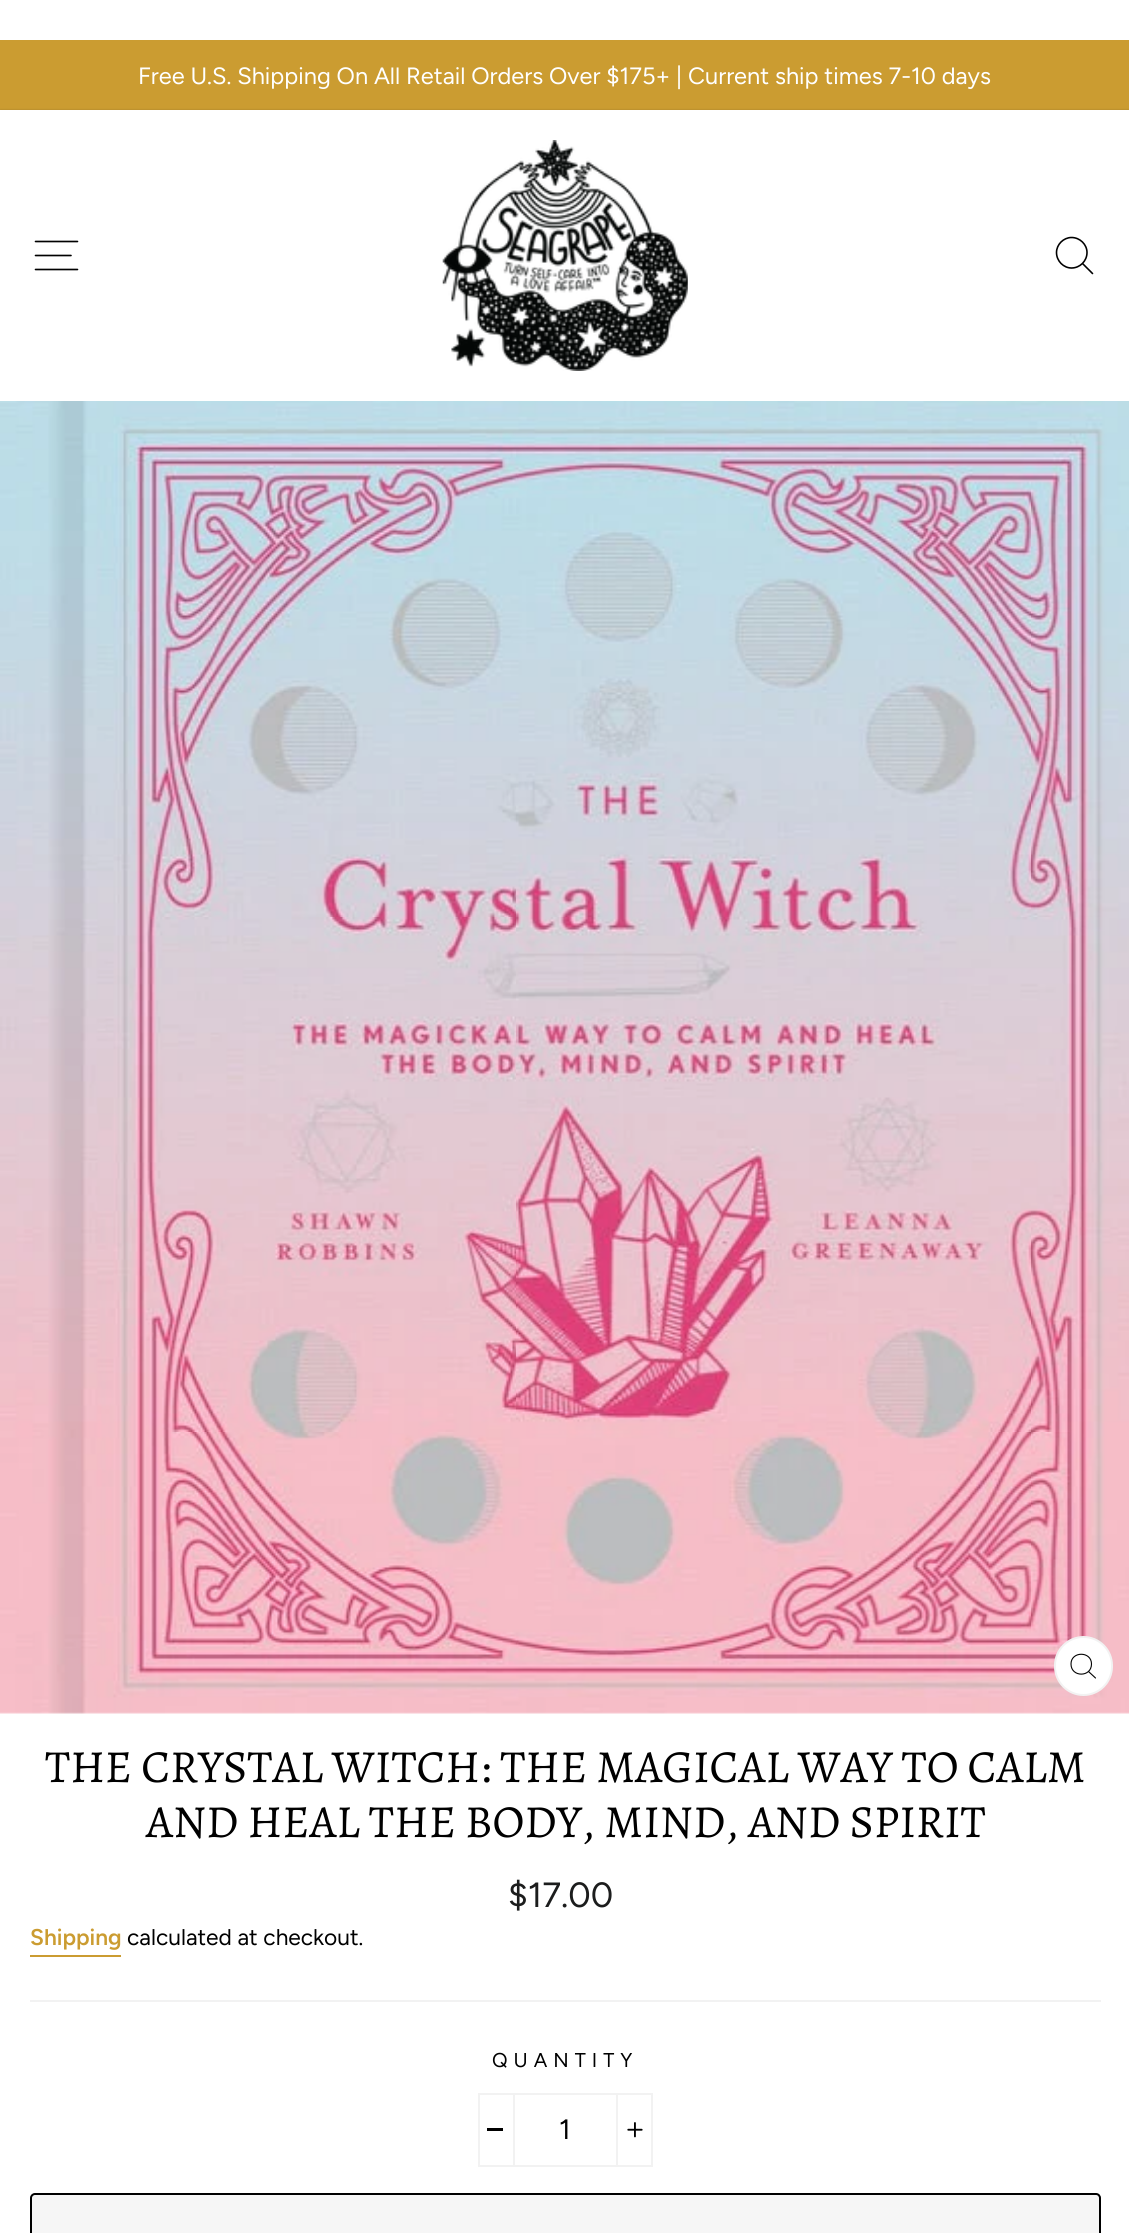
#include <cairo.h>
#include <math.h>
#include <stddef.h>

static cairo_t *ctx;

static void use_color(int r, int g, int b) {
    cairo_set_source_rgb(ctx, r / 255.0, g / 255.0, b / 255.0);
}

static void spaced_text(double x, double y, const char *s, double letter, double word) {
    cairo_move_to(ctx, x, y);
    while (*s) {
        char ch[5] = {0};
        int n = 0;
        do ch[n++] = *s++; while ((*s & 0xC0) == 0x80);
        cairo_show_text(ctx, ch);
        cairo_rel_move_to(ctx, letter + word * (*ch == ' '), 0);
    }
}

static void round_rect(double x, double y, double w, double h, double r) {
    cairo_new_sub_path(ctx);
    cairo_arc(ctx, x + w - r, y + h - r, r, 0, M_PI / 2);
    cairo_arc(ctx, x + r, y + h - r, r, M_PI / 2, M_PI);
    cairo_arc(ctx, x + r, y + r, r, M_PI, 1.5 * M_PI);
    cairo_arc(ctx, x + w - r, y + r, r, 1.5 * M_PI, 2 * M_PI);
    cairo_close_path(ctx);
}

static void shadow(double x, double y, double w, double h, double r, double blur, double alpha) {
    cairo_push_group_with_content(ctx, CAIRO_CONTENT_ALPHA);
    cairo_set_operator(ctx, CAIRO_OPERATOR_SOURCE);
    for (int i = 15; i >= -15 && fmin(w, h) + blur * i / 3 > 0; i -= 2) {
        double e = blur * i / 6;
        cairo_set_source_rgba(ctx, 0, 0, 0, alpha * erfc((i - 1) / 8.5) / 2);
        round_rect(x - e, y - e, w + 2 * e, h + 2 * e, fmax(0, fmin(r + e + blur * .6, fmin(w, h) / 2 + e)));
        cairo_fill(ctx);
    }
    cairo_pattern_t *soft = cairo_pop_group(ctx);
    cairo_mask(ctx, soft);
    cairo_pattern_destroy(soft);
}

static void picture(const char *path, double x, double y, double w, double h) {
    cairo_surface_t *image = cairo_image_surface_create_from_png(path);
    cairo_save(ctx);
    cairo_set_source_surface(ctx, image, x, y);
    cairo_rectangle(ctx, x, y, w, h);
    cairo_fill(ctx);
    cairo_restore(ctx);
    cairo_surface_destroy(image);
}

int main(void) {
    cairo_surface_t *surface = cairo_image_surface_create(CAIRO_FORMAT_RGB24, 1129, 2233);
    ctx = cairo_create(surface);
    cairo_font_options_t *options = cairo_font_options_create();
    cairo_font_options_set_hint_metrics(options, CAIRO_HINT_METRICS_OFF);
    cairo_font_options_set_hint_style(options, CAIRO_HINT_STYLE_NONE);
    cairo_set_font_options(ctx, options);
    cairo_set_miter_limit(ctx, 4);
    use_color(255, 255, 255);
    cairo_paint(ctx);
    use_color(203, 156, 49);
    cairo_rectangle(ctx, 0, 40, 1129, 70);
    cairo_fill(ctx);
    cairo_select_font_face(ctx, "Figtree", CAIRO_FONT_SLANT_NORMAL, CAIRO_FONT_WEIGHT_NORMAL);
    cairo_set_font_size(ctx, 23.6);
    use_color(255, 255, 255);
    cairo_move_to(ctx, 138, 84);
    cairo_show_text(ctx, "Free U.S. Shipping On All Retail Orders Over $175+ | Current ship times 7-10 days");
    use_color(0, 0, 0);
    shadow(0, 110, 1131, 291, 0, 1, 0.2);
    use_color(255, 255, 255);
    cairo_rectangle(ctx, 0, 110, 1129, 291);
    cairo_fill(ctx);
    cairo_new_path(ctx);
    cairo_move_to(ctx, 35.5, 241.5);
    cairo_line_to(ctx, 77.5, 241.5);
    cairo_move_to(ctx, 35.5, 255.5);
    cairo_line_to(ctx, 71, 255.5);
    cairo_move_to(ctx, 35.5, 269.5);
    cairo_line_to(ctx, 77.5, 269.5);
    use_color(0, 0, 0);
    cairo_set_line_width(ctx, 1.6);
    cairo_set_line_cap(ctx, CAIRO_LINE_CAP_ROUND);
    cairo_set_line_join(ctx, CAIRO_LINE_JOIN_ROUND);
    cairo_stroke(ctx);
    picture("img1.png", 442, 140, 246, 231);
    cairo_new_path(ctx);
    cairo_move_to(ctx, 1087, 252.5);
    cairo_curve_to(ctx, 1087, 261, 1080, 268, 1071.5, 268);
    cairo_curve_to(ctx, 1063.5, 268, 1056.5, 261, 1056.5, 252.5);
    cairo_curve_to(ctx, 1056.5, 244.5, 1063.5, 237.5, 1071.5, 237.5);
    cairo_curve_to(ctx, 1080, 237.5, 1087, 244.5, 1087, 252.5);
    cairo_close_path(ctx);
    cairo_move_to(ctx, 1092.5, 273.5);
    cairo_line_to(ctx, 1082.5, 263.5);
    cairo_stroke(ctx);
    picture("img2.png", 0, 401, 1129, 1313);
    use_color(255, 255, 255);
    round_rect(1055, 1637, 57, 58, 28.5);
    cairo_fill_preserve(ctx);
    use_color(242, 242, 242);
    cairo_set_line_width(ctx, 2);
    cairo_set_line_cap(ctx, CAIRO_LINE_CAP_BUTT);
    cairo_set_line_join(ctx, CAIRO_LINE_JOIN_MITER);
    cairo_stroke(ctx);
    cairo_new_path(ctx);
    cairo_move_to(ctx, 1091.5, 1664);
    cairo_curve_to(ctx, 1091.5, 1677.5, 1071, 1677.5, 1071, 1664);
    cairo_curve_to(ctx, 1071, 1651, 1091.5, 1651, 1091.5, 1664);
    cairo_close_path(ctx);
    cairo_move_to(ctx, 1095.5, 1678);
    cairo_line_to(ctx, 1088.5, 1671.5);
    use_color(0, 0, 0);
    cairo_set_line_width(ctx, 1.1);
    cairo_set_line_cap(ctx, CAIRO_LINE_CAP_ROUND);
    cairo_set_line_join(ctx, CAIRO_LINE_JOIN_ROUND);
    cairo_stroke(ctx);
    cairo_select_font_face(ctx, "Alegreya", CAIRO_FONT_SLANT_NORMAL, CAIRO_FONT_WEIGHT_NORMAL);
    cairo_set_font_size(ctx, 46.05);
    cairo_move_to(ctx, 45, 1782);
    cairo_show_text(ctx, "THE CRYSTAL WITCH: THE MAGICAL WAY TO CALM");
    cairo_move_to(ctx, 146, 1837);
    cairo_show_text(ctx, "AND HEAL THE BODY, MIND, AND SPIRIT");
    cairo_select_font_face(ctx, "Figtree", CAIRO_FONT_SLANT_NORMAL, CAIRO_FONT_WEIGHT_NORMAL);
    cairo_set_font_size(ctx, 35);
    use_color(28, 29, 29);
    cairo_move_to(ctx, 508, 1907);
    cairo_show_text(ctx, "$17.00");
    use_color(203, 156, 49);
    cairo_rectangle(ctx, 30, 1955, 91, 2);
    cairo_fill(ctx);
    cairo_select_font_face(ctx, "Figtree SemiBold", CAIRO_FONT_SLANT_NORMAL, CAIRO_FONT_WEIGHT_NORMAL);
    cairo_set_font_size(ctx, 22.75);
    cairo_move_to(ctx, 30, 1945);
    cairo_show_text(ctx, "Shipping");
    cairo_select_font_face(ctx, "Figtree", CAIRO_FONT_SLANT_NORMAL, CAIRO_FONT_WEIGHT_NORMAL);
    use_color(0, 0, 0);
    cairo_move_to(ctx, 127, 1945);
    cairo_show_text(ctx, "calculated at checkout.");
    use_color(242, 242, 242);
    cairo_rectangle(ctx, 30, 2000, 1071, 2);
    cairo_fill(ctx);
    cairo_set_font_size(ctx, 20);
    use_color(0, 0, 0);
    spaced_text(492, 2067, "QUANTITY", 6, 0);
    cairo_rectangle(ctx, 479, 2094, 173, 72);
    use_color(242, 242, 242);
    cairo_set_line_width(ctx, 2);
    cairo_set_line_cap(ctx, CAIRO_LINE_CAP_BUTT);
    cairo_set_line_join(ctx, CAIRO_LINE_JOIN_MITER);
    cairo_stroke(ctx);
    cairo_rectangle(ctx, 513, 2093, 2, 74);
    cairo_fill(ctx);
    use_color(0, 0, 0);
    cairo_rectangle(ctx, 487, 2128, 16, 3);
    cairo_fill(ctx);
    cairo_set_font_size(ctx, 28);
    cairo_move_to(ctx, 559, 2139);
    cairo_show_text(ctx, "1");
    use_color(242, 242, 242);
    cairo_rectangle(ctx, 616, 2093, 2, 74);
    cairo_fill(ctx);
    picture("img3.png", 627, 2122, 16, 16);
    use_color(246, 246, 246);
    round_rect(31, 2194, 1069, 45, 4);
    cairo_fill_preserve(ctx);
    use_color(0, 0, 0);
    cairo_stroke(ctx);
    cairo_surface_write_to_png(surface, "result.png");
    cairo_font_options_destroy(options);
    cairo_destroy(ctx);
    cairo_surface_destroy(surface);
    return 0;
}
